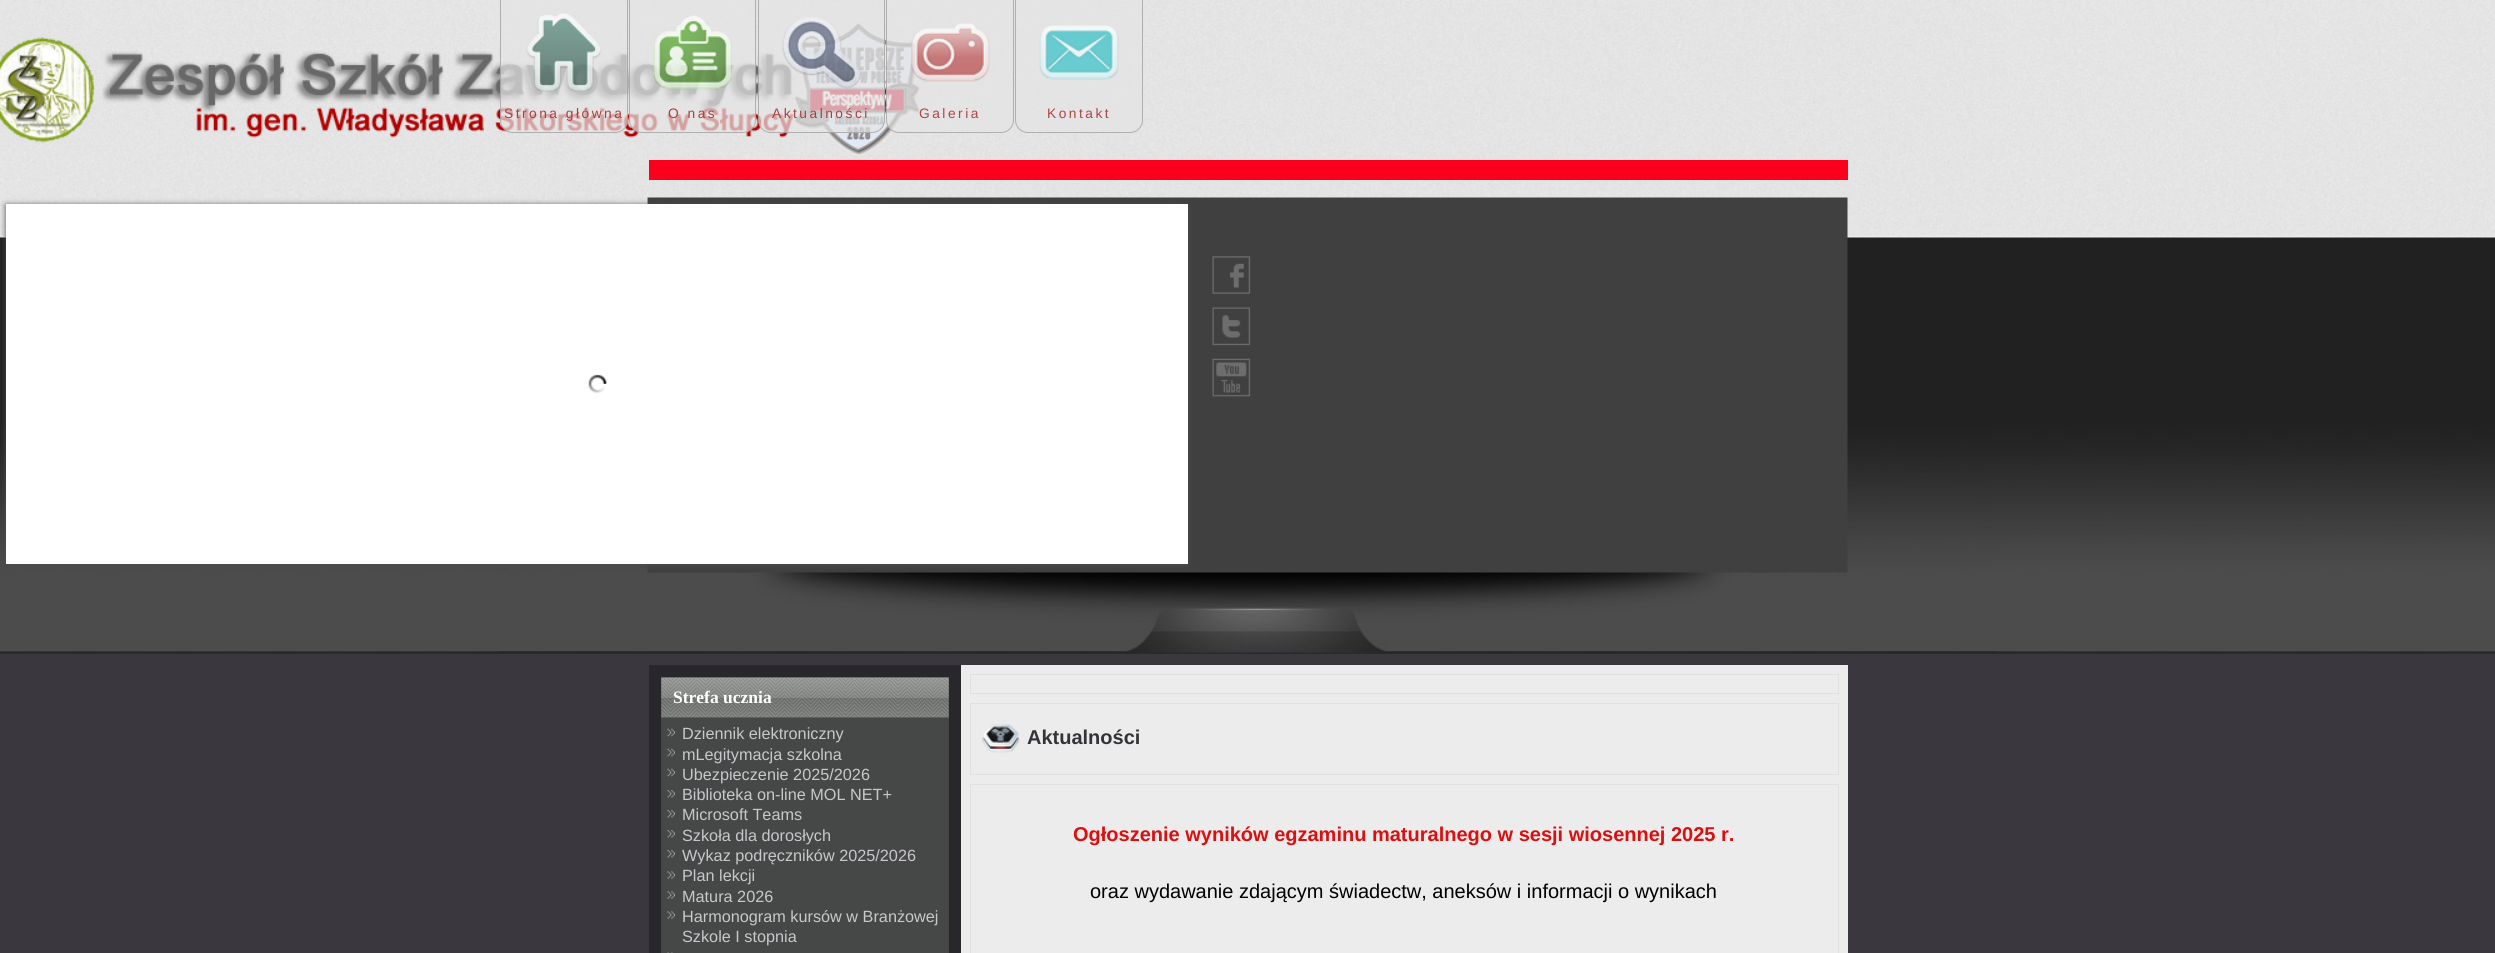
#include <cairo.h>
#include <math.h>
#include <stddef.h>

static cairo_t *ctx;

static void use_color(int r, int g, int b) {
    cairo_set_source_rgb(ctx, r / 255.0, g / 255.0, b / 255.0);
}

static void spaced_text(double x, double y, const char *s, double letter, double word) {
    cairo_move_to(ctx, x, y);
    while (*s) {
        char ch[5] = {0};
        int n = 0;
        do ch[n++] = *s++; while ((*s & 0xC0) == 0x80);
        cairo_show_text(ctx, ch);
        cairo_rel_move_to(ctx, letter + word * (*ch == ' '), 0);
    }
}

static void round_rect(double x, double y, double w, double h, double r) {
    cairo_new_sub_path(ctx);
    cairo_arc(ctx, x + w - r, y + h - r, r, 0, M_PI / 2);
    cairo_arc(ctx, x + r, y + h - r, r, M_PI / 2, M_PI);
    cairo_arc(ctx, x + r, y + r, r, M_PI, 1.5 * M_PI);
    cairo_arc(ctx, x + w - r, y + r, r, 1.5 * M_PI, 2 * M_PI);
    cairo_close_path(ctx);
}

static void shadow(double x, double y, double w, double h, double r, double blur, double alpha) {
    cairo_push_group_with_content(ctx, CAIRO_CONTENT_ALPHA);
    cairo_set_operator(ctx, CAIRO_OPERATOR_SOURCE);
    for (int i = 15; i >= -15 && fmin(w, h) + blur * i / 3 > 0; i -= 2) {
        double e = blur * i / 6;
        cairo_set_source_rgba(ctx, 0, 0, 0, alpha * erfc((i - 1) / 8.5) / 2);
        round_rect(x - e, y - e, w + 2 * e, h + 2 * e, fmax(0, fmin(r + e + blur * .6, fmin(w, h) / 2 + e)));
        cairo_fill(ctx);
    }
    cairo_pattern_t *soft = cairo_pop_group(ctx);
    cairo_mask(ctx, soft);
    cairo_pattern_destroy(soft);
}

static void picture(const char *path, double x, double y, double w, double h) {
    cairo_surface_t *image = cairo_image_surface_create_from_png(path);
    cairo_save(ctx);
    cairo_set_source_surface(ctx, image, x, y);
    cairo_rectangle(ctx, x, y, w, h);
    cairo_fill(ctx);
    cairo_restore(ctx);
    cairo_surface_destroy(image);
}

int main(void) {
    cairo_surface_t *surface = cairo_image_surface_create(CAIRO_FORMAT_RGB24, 2495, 953);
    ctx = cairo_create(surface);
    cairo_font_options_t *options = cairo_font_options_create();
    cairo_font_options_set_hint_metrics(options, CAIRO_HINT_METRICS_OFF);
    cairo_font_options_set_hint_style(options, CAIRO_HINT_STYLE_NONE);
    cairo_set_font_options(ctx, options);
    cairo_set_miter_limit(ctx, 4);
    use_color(58, 56, 62);
    cairo_paint(ctx);
    picture("img1.png", 0, 0, 2495, 654);
    picture("img2.png", 497, 0, 1500, 653);
    picture("img3.png", 0, 23, 921, 133);
    use_color(74, 74, 74);
    shadow(6, 205, 1182, 360, 0, 3, 1);
    use_color(255, 255, 255);
    cairo_rectangle(ctx, 6, 204, 1182, 360);
    cairo_fill(ctx);
    picture("img4.png", 588, 374, 19, 19);
    picture("img5.png", 1212, 256, 39, 38);
    picture("img6.png", 1212, 307, 39, 39);
    picture("img7.png", 1212, 358, 39, 39);
    cairo_set_source_rgba(ctx, 0.894, 0.894, 0.894, 0.7);
    cairo_new_path(ctx);
    cairo_move_to(ctx, 500, 0);
    cairo_line_to(ctx, 628, 0);
    cairo_line_to(ctx, 628, 120);
    cairo_curve_to(ctx, 628, 127, 622, 133, 615, 133);
    cairo_line_to(ctx, 513, 133);
    cairo_curve_to(ctx, 506, 133, 500, 127, 500, 120);
    cairo_close_path(ctx);
    cairo_fill(ctx);
    picture("img8.png", 526, 13, 76, 79);
    cairo_new_path(ctx);
    cairo_move_to(ctx, 500.5, -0.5);
    cairo_line_to(ctx, 627.5, -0.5);
    cairo_line_to(ctx, 627.5, 120);
    cairo_curve_to(ctx, 627.5, 127, 622, 132.5, 615, 132.5);
    cairo_line_to(ctx, 513, 132.5);
    cairo_curve_to(ctx, 506, 132.5, 500.5, 127, 500.5, 120);
    cairo_close_path(ctx);
    cairo_set_source_rgba(ctx, 0.6, 0.6, 0.6, 0.7);
    cairo_set_line_width(ctx, 1);
    cairo_stroke(ctx);
    cairo_select_font_face(ctx, "Liberation Sans", CAIRO_FONT_SLANT_NORMAL, CAIRO_FONT_WEIGHT_NORMAL);
    cairo_set_font_size(ctx, 13.75);
    use_color(174, 62, 62);
    spaced_text(504, 118, "Strona główna", 2.5, 0);
    cairo_set_source_rgba(ctx, 0.894, 0.894, 0.894, 0.7);
    cairo_new_path(ctx);
    cairo_move_to(ctx, 629, 0);
    cairo_line_to(ctx, 756, 0);
    cairo_line_to(ctx, 756, 120);
    cairo_curve_to(ctx, 756, 127, 750, 133, 743, 133);
    cairo_line_to(ctx, 642, 133);
    cairo_curve_to(ctx, 635, 133, 629, 127, 629, 120);
    cairo_close_path(ctx);
    cairo_fill(ctx);
    picture("img9.png", 653, 15, 79, 75);
    cairo_new_path(ctx);
    cairo_move_to(ctx, 629.5, -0.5);
    cairo_line_to(ctx, 755.5, -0.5);
    cairo_line_to(ctx, 755.5, 120);
    cairo_curve_to(ctx, 755.5, 127, 750, 132.5, 743, 132.5);
    cairo_line_to(ctx, 642, 132.5);
    cairo_curve_to(ctx, 635, 132.5, 629.5, 127, 629.5, 120);
    cairo_close_path(ctx);
    cairo_set_source_rgba(ctx, 0.6, 0.6, 0.6, 0.7);
    cairo_stroke(ctx);
    use_color(174, 62, 62);
    spaced_text(668, 118, "O nas", 2.5, 0);
    cairo_set_source_rgba(ctx, 0.894, 0.894, 0.894, 0.7);
    cairo_new_path(ctx);
    cairo_move_to(ctx, 758, 0);
    cairo_line_to(ctx, 885, 0);
    cairo_line_to(ctx, 885, 120);
    cairo_curve_to(ctx, 885, 127, 879, 133, 872, 133);
    cairo_line_to(ctx, 771, 133);
    cairo_curve_to(ctx, 764, 133, 758, 127, 758, 120);
    cairo_close_path(ctx);
    cairo_fill(ctx);
    picture("img10.png", 782, 17, 79, 72);
    cairo_new_path(ctx);
    cairo_move_to(ctx, 758.5, -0.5);
    cairo_line_to(ctx, 884.5, -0.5);
    cairo_line_to(ctx, 884.5, 120);
    cairo_curve_to(ctx, 884.5, 127, 879, 132.5, 872, 132.5);
    cairo_line_to(ctx, 771, 132.5);
    cairo_curve_to(ctx, 764, 132.5, 758.5, 127, 758.5, 120);
    cairo_close_path(ctx);
    cairo_set_source_rgba(ctx, 0.6, 0.6, 0.6, 0.7);
    cairo_stroke(ctx);
    use_color(174, 62, 62);
    spaced_text(772, 118, "Aktualności", 2.5, 0);
    cairo_set_source_rgba(ctx, 0.894, 0.894, 0.894, 0.7);
    cairo_new_path(ctx);
    cairo_move_to(ctx, 886, 0);
    cairo_line_to(ctx, 1014, 0);
    cairo_line_to(ctx, 1014, 120);
    cairo_curve_to(ctx, 1014, 127, 1008, 133, 1001, 133);
    cairo_line_to(ctx, 899, 133);
    cairo_curve_to(ctx, 892, 133, 886, 127, 886, 120);
    cairo_close_path(ctx);
    cairo_fill(ctx);
    picture("img11.png", 911, 23, 79, 59);
    cairo_new_path(ctx);
    cairo_move_to(ctx, 886.5, -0.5);
    cairo_line_to(ctx, 1013.5, -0.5);
    cairo_line_to(ctx, 1013.5, 120);
    cairo_curve_to(ctx, 1013.5, 127, 1008, 132.5, 1001, 132.5);
    cairo_line_to(ctx, 899, 132.5);
    cairo_curve_to(ctx, 892, 132.5, 886.5, 127, 886.5, 120);
    cairo_close_path(ctx);
    cairo_set_source_rgba(ctx, 0.6, 0.6, 0.6, 0.7);
    cairo_stroke(ctx);
    use_color(175, 68, 68);
    spaced_text(919, 118, "Galeria", 2.5, 0);
    cairo_set_source_rgba(ctx, 0.894, 0.894, 0.894, 0.7);
    cairo_new_path(ctx);
    cairo_move_to(ctx, 1015, 0);
    cairo_line_to(ctx, 1143, 0);
    cairo_line_to(ctx, 1143, 120);
    cairo_curve_to(ctx, 1143, 127, 1137, 133, 1130, 133);
    cairo_line_to(ctx, 1028, 133);
    cairo_curve_to(ctx, 1021, 133, 1015, 127, 1015, 120);
    cairo_close_path(ctx);
    cairo_fill(ctx);
    picture("img12.png", 1039, 25, 80, 55);
    cairo_new_path(ctx);
    cairo_move_to(ctx, 1015.5, -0.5);
    cairo_line_to(ctx, 1142.5, -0.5);
    cairo_line_to(ctx, 1142.5, 120);
    cairo_curve_to(ctx, 1142.5, 127, 1137, 132.5, 1130, 132.5);
    cairo_line_to(ctx, 1028, 132.5);
    cairo_curve_to(ctx, 1021, 132.5, 1015.5, 127, 1015.5, 120);
    cairo_close_path(ctx);
    cairo_set_source_rgba(ctx, 0.6, 0.6, 0.6, 0.7);
    cairo_stroke(ctx);
    use_color(175, 68, 68);
    spaced_text(1047, 118, "Kontakt", 2.5, 0);
    use_color(250, 0, 29);
    cairo_rectangle(ctx, 649, 160, 1199, 20);
    cairo_fill(ctx);
    use_color(236, 236, 237);
    cairo_rectangle(ctx, 961, 665, 887, 288);
    cairo_fill(ctx);
    use_color(40, 39, 43);
    cairo_rectangle(ctx, 649, 665, 312, 288);
    cairo_fill(ctx);
    picture("img13.png", 661, 677, 288, 41);
    cairo_select_font_face(ctx, "Liberation Serif", CAIRO_FONT_SLANT_NORMAL, CAIRO_FONT_WEIGHT_BOLD);
    cairo_set_font_size(ctx, 17.5);
    use_color(255, 255, 255);
    cairo_move_to(ctx, 673, 703);
    cairo_show_text(ctx, "Strefa ucznia");
    use_color(70, 72, 71);
    cairo_rectangle(ctx, 661, 718, 288, 235);
    cairo_fill(ctx);
    picture("img14.png", 667, 728, 8, 9);
    cairo_select_font_face(ctx, "Liberation Sans", CAIRO_FONT_SLANT_NORMAL, CAIRO_FONT_WEIGHT_NORMAL);
    cairo_set_font_size(ctx, 16.25);
    use_color(201, 199, 204);
    cairo_move_to(ctx, 682, 739);
    cairo_show_text(ctx, "Dziennik elektroniczny");
    picture("img14.png", 667, 748, 8, 9);
    cairo_move_to(ctx, 682, 760);
    cairo_show_text(ctx, "mLegitymacja szkolna");
    picture("img14.png", 667, 768, 8, 9);
    cairo_move_to(ctx, 682, 780);
    cairo_show_text(ctx, "Ubezpieczenie 2025/2026");
    picture("img15.png", 667, 790, 8, 8);
    cairo_move_to(ctx, 682, 800);
    cairo_show_text(ctx, "Biblioteka on-line MOL NET+");
    picture("img15.png", 667, 810, 8, 8);
    cairo_move_to(ctx, 682, 820);
    cairo_show_text(ctx, "Microsoft Teams");
    picture("img15.png", 667, 830, 8, 8);
    cairo_move_to(ctx, 682, 841);
    cairo_show_text(ctx, "Szkoła dla dorosłych");
    picture("img15.png", 667, 850, 8, 8);
    cairo_move_to(ctx, 682, 861);
    cairo_show_text(ctx, "Wykaz podręczników 2025/2026");
    picture("img16.png", 667, 871, 8, 8);
    cairo_move_to(ctx, 682, 881);
    cairo_show_text(ctx, "Plan lekcji");
    picture("img16.png", 667, 891, 8, 8);
    cairo_move_to(ctx, 682, 902);
    cairo_show_text(ctx, "Matura 2026");
    picture("img16.png", 667, 911, 8, 8);
    cairo_move_to(ctx, 682, 922);
    cairo_show_text(ctx, "Harmonogram kursów w Branżowej");
    cairo_move_to(ctx, 682, 942);
    cairo_show_text(ctx, "Szkole I stopnia");
    picture("img17.png", 667, 952, 6, 1);
    cairo_rectangle(ctx, 970.5, 674.5, 868, 19);
    use_color(225, 225, 226);
    cairo_stroke(ctx);
    cairo_rectangle(ctx, 970.5, 703.5, 868, 71);
    cairo_stroke(ctx);
    picture("img18.png", 981, 724, 39, 29);
    cairo_select_font_face(ctx, "Liberation Sans", CAIRO_FONT_SLANT_NORMAL, CAIRO_FONT_WEIGHT_BOLD);
    cairo_set_font_size(ctx, 20);
    use_color(53, 51, 56);
    cairo_move_to(ctx, 1027, 744);
    cairo_show_text(ctx, "Aktualności");
    cairo_rectangle(ctx, 970.5, 784.5, 868, 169);
    use_color(225, 225, 226);
    cairo_stroke(ctx);
    use_color(219, 15, 15);
    cairo_move_to(ctx, 1073, 841);
    cairo_show_text(ctx, "Ogłoszenie wyników egzaminu maturalnego w sesji wiosennej 2025 r.");
    cairo_select_font_face(ctx, "Liberation Sans", CAIRO_FONT_SLANT_NORMAL, CAIRO_FONT_WEIGHT_NORMAL);
    use_color(0, 0, 0);
    cairo_move_to(ctx, 1090, 898);
    cairo_show_text(ctx, "oraz wydawanie zdającym świadectw, aneksów i informacji o wynikach");
    cairo_surface_write_to_png(surface, "result.png");
    cairo_font_options_destroy(options);
    cairo_destroy(ctx);
    cairo_surface_destroy(surface);
    return 0;
}
